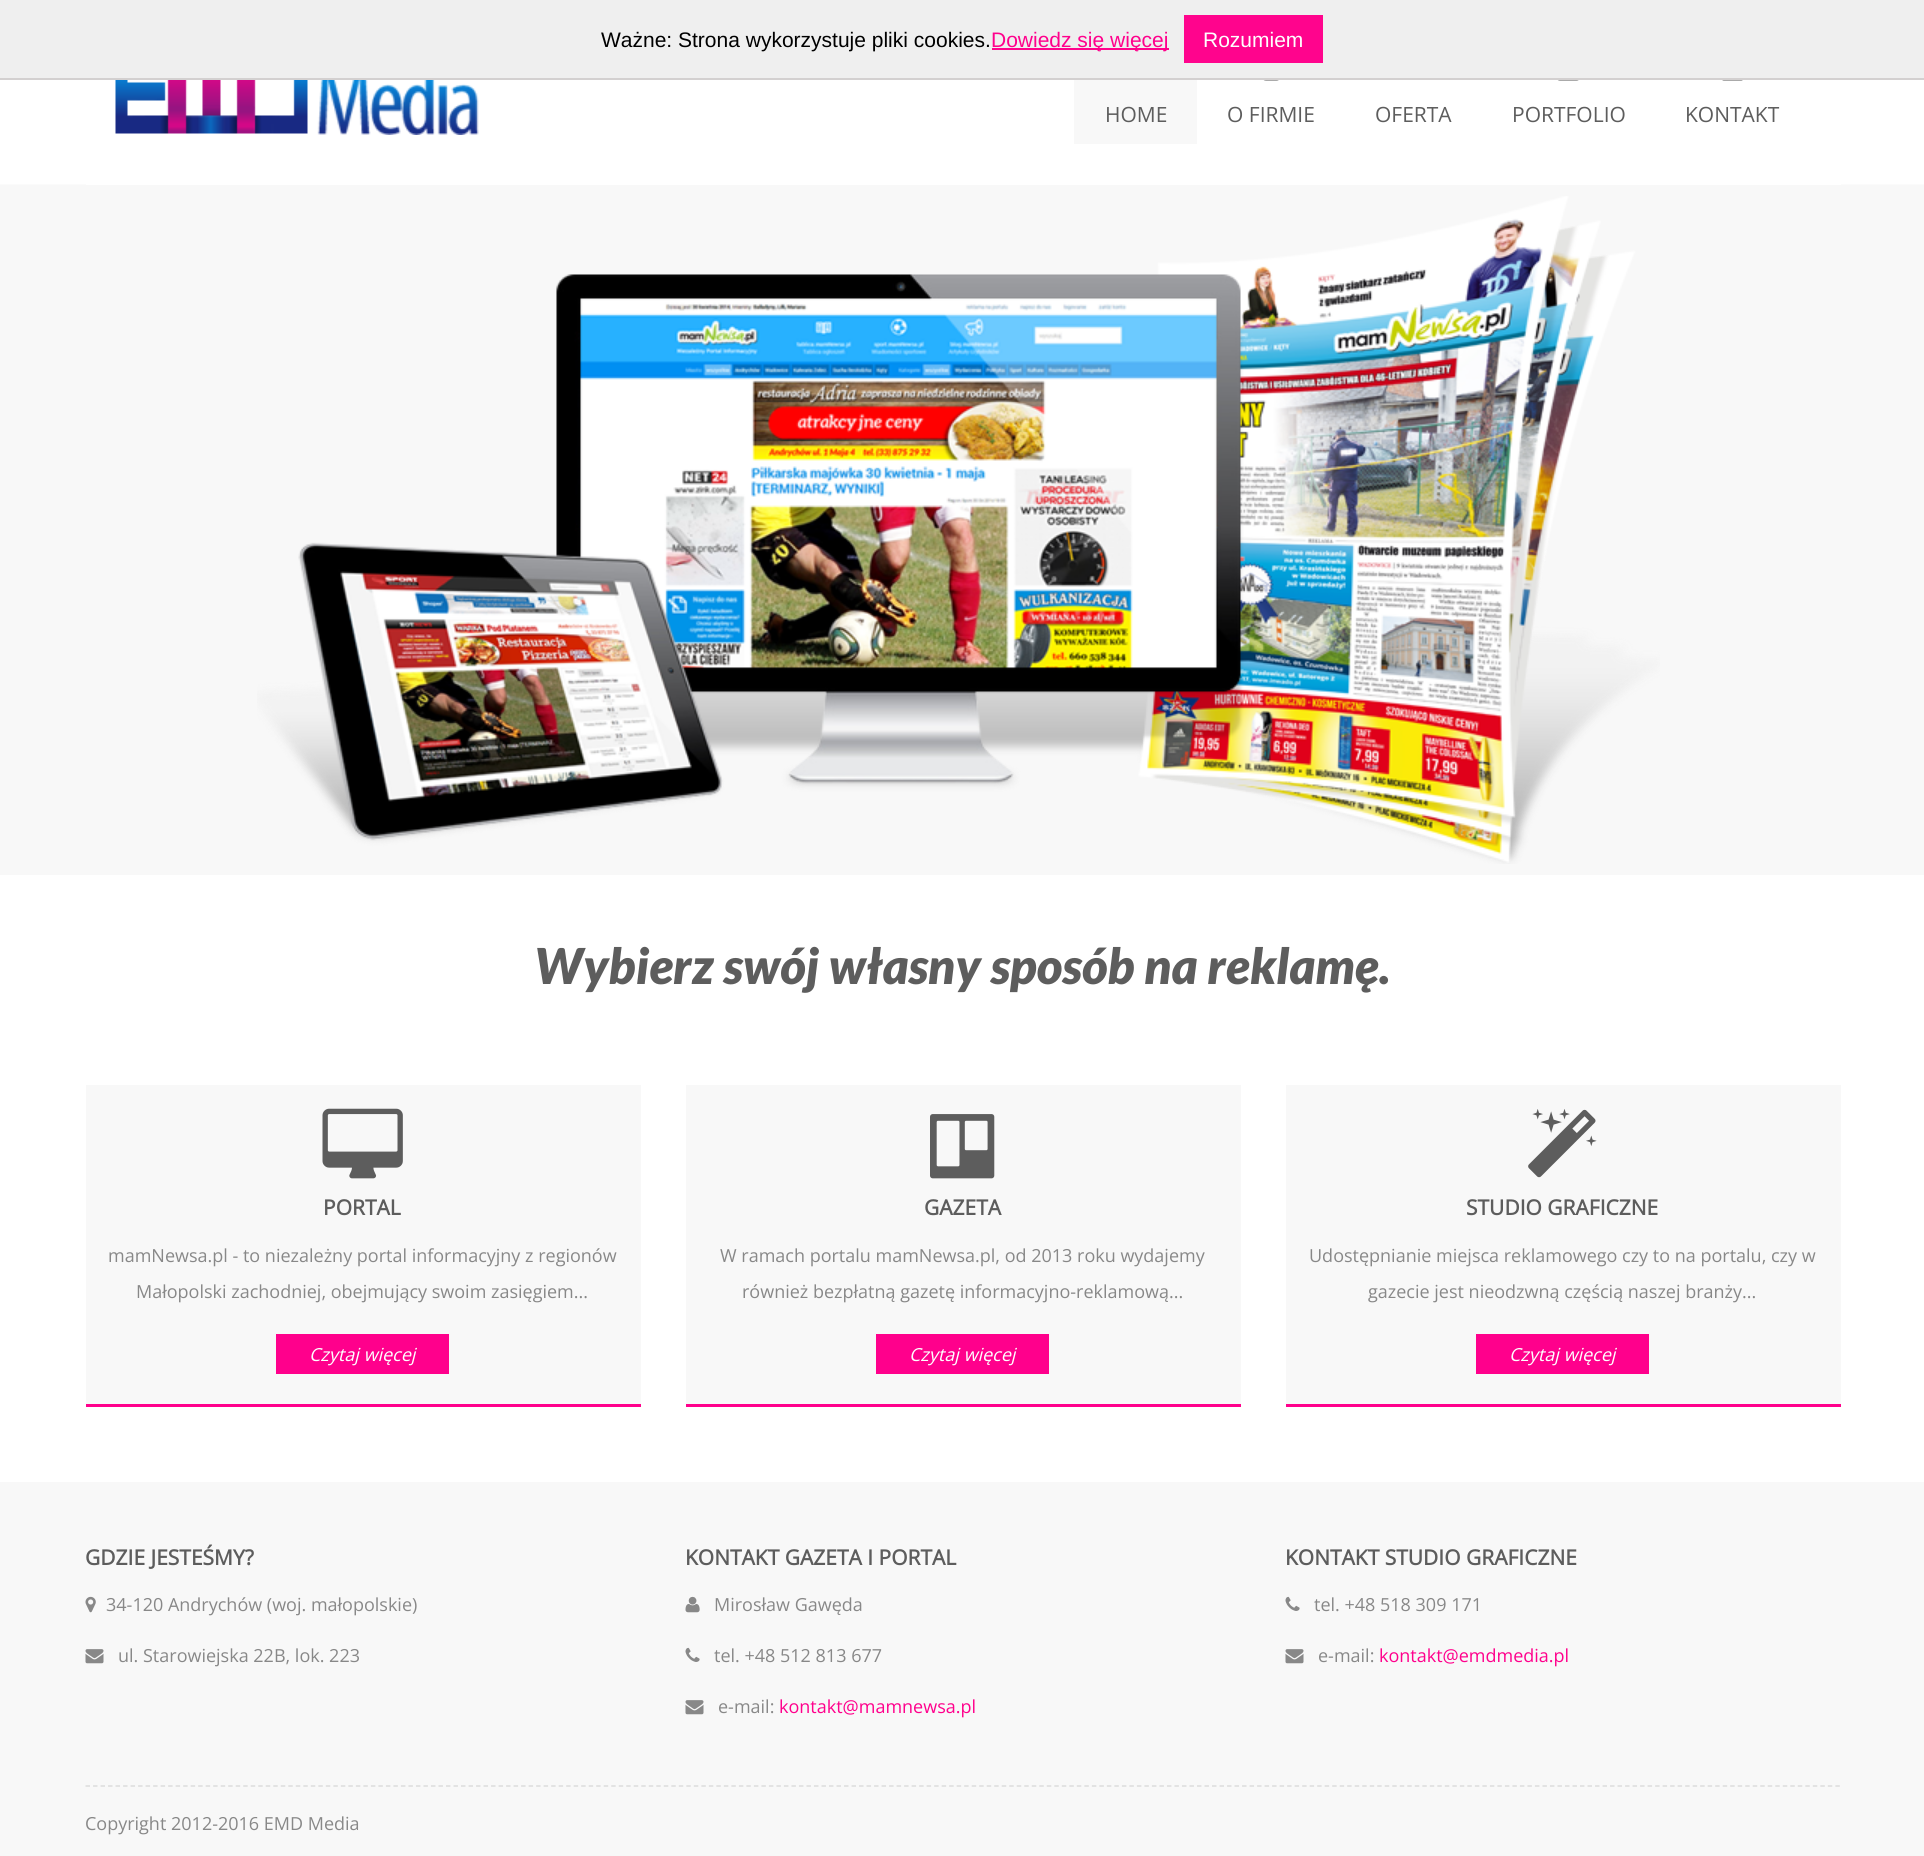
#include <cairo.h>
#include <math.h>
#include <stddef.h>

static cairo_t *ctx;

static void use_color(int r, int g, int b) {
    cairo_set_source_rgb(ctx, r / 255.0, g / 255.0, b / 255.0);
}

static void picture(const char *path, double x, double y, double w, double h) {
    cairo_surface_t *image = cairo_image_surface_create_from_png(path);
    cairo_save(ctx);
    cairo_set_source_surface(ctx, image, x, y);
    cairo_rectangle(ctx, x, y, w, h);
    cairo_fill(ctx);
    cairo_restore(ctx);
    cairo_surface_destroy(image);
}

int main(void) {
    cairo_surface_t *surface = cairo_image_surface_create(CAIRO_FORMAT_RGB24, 1924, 1856);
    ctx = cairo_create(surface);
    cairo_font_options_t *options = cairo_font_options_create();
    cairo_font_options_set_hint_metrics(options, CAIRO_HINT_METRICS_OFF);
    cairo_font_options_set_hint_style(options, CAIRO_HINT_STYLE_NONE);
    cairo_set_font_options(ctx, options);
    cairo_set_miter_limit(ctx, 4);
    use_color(255, 255, 255);
    cairo_paint(ctx);
    use_color(239, 239, 239);
    cairo_rectangle(ctx, 0, 0, 1924, 78);
    cairo_fill(ctx);
    use_color(211, 208, 208);
    cairo_rectangle(ctx, 0, 78, 1924, 2);
    cairo_fill(ctx);
    cairo_select_font_face(ctx, "Liberation Sans", CAIRO_FONT_SLANT_NORMAL, CAIRO_FONT_WEIGHT_NORMAL);
    cairo_set_font_size(ctx, 21);
    use_color(0, 0, 0);
    cairo_move_to(ctx, 601, 47);
    cairo_show_text(ctx, "Ważne: Strona wykorzystuje pliki cookies.");
    use_color(255, 4, 141);
    cairo_rectangle(ctx, 992, 48, 177, 2);
    cairo_fill(ctx);
    use_color(255, 0, 140);
    cairo_move_to(ctx, 991, 47);
    cairo_show_text(ctx, "Dowiedz się więcej");
    use_color(255, 4, 141);
    cairo_rectangle(ctx, 1184, 15, 139, 48);
    cairo_fill(ctx);
    use_color(255, 255, 255);
    cairo_move_to(ctx, 1203, 47);
    cairo_show_text(ctx, "Rozumiem");
    use_color(251, 251, 251);
    cairo_rectangle(ctx, 0, 184, 1924, 1);
    cairo_fill(ctx);
    use_color(255, 255, 255);
    cairo_rectangle(ctx, 86, 184, 1755, 1);
    cairo_fill(ctx);
    picture("img1.png", 115, 80, 364, 55);
    use_color(248, 248, 248);
    cairo_rectangle(ctx, 1074, 80, 123, 64);
    cairo_fill(ctx);
    cairo_select_font_face(ctx, "Open Sans", CAIRO_FONT_SLANT_NORMAL, CAIRO_FONT_WEIGHT_NORMAL);
    use_color(93, 93, 93);
    cairo_move_to(ctx, 1105, 122);
    cairo_show_text(ctx, "HOME");
    picture("img2.png", 1263, 80, 16, 1);
    cairo_move_to(ctx, 1227, 122);
    cairo_show_text(ctx, "O FIRMIE");
    cairo_move_to(ctx, 1375, 122);
    cairo_show_text(ctx, "OFERTA");
    picture("img3.png", 1557, 80, 22, 1);
    cairo_move_to(ctx, 1512, 122);
    cairo_show_text(ctx, "PORTFOLIO");
    picture("img4.png", 1722, 80, 21, 1);
    cairo_move_to(ctx, 1685, 122);
    cairo_show_text(ctx, "KONTAKT");
    use_color(248, 248, 248);
    cairo_rectangle(ctx, 0, 185, 1924, 690);
    cairo_fill(ctx);
    picture("img5.png", 257, 196, 1403, 668);
    cairo_select_font_face(ctx, "Lato Black", CAIRO_FONT_SLANT_ITALIC, CAIRO_FONT_WEIGHT_NORMAL);
    cairo_set_font_size(ctx, 49.5);
    use_color(93, 93, 93);
    cairo_move_to(ctx, 534, 984);
    cairo_show_text(ctx, "Wybierz swój własny sposób na reklamę.");
    use_color(248, 248, 248);
    cairo_rectangle(ctx, 86, 1085, 555, 319);
    cairo_fill(ctx);
    use_color(255, 0, 140);
    cairo_rectangle(ctx, 86, 1404, 555, 3);
    cairo_fill(ctx);
    picture("img6.png", 322, 1108, 81, 71);
    cairo_select_font_face(ctx, "Open Sans", CAIRO_FONT_SLANT_NORMAL, CAIRO_FONT_WEIGHT_BOLD);
    cairo_set_font_size(ctx, 21);
    use_color(93, 93, 93);
    cairo_move_to(ctx, 323, 1215);
    cairo_show_text(ctx, "PORTAL");
    cairo_select_font_face(ctx, "Open Sans", CAIRO_FONT_SLANT_NORMAL, CAIRO_FONT_WEIGHT_NORMAL);
    cairo_set_font_size(ctx, 18);
    use_color(136, 136, 136);
    cairo_move_to(ctx, 108, 1262);
    cairo_show_text(ctx, "mamNewsa.pl - to niezależny portal informacyjny z regionów");
    cairo_move_to(ctx, 136, 1298);
    cairo_show_text(ctx, "Małopolski zachodniej, obejmujący swoim zasięgiem...");
    use_color(255, 0, 140);
    cairo_rectangle(ctx, 276, 1334, 173, 40);
    cairo_fill(ctx);
    cairo_select_font_face(ctx, "Open Sans", CAIRO_FONT_SLANT_ITALIC, CAIRO_FONT_WEIGHT_NORMAL);
    use_color(255, 255, 255);
    cairo_move_to(ctx, 309, 1361);
    cairo_show_text(ctx, "Czytaj więcej");
    use_color(248, 248, 248);
    cairo_rectangle(ctx, 686, 1085, 555, 319);
    cairo_fill(ctx);
    use_color(255, 0, 140);
    cairo_rectangle(ctx, 686, 1404, 555, 3);
    cairo_fill(ctx);
    picture("img7.png", 930, 1114, 65, 65);
    cairo_select_font_face(ctx, "Open Sans", CAIRO_FONT_SLANT_NORMAL, CAIRO_FONT_WEIGHT_BOLD);
    cairo_set_font_size(ctx, 21);
    use_color(93, 93, 93);
    cairo_move_to(ctx, 924, 1215);
    cairo_show_text(ctx, "GAZETA");
    cairo_select_font_face(ctx, "Open Sans", CAIRO_FONT_SLANT_NORMAL, CAIRO_FONT_WEIGHT_NORMAL);
    cairo_set_font_size(ctx, 18);
    use_color(136, 136, 136);
    cairo_move_to(ctx, 720, 1262);
    cairo_show_text(ctx, "W ramach portalu mamNewsa.pl, od 2013 roku wydajemy");
    cairo_move_to(ctx, 742, 1298);
    cairo_show_text(ctx, "również bezpłatną gazetę informacyjno-reklamową...");
    use_color(255, 0, 140);
    cairo_rectangle(ctx, 876, 1334, 173, 40);
    cairo_fill(ctx);
    cairo_select_font_face(ctx, "Open Sans", CAIRO_FONT_SLANT_ITALIC, CAIRO_FONT_WEIGHT_NORMAL);
    use_color(255, 255, 255);
    cairo_move_to(ctx, 909, 1361);
    cairo_show_text(ctx, "Czytaj więcej");
    use_color(248, 248, 248);
    cairo_rectangle(ctx, 1286, 1085, 555, 319);
    cairo_fill(ctx);
    use_color(255, 0, 140);
    cairo_rectangle(ctx, 1286, 1404, 555, 3);
    cairo_fill(ctx);
    picture("img8.png", 1528, 1109, 69, 69);
    cairo_select_font_face(ctx, "Open Sans", CAIRO_FONT_SLANT_NORMAL, CAIRO_FONT_WEIGHT_BOLD);
    cairo_set_font_size(ctx, 21);
    use_color(93, 93, 93);
    cairo_move_to(ctx, 1466, 1215);
    cairo_show_text(ctx, "STUDIO GRAFICZNE");
    cairo_select_font_face(ctx, "Open Sans", CAIRO_FONT_SLANT_NORMAL, CAIRO_FONT_WEIGHT_NORMAL);
    cairo_set_font_size(ctx, 18);
    use_color(136, 136, 136);
    cairo_move_to(ctx, 1309, 1262);
    cairo_show_text(ctx, "Udostępnianie miejsca reklamowego czy to na portalu, czy w");
    cairo_move_to(ctx, 1368, 1298);
    cairo_show_text(ctx, "gazecie jest nieodzwną częścią naszej branży...");
    use_color(255, 0, 140);
    cairo_rectangle(ctx, 1476, 1334, 173, 40);
    cairo_fill(ctx);
    cairo_select_font_face(ctx, "Open Sans", CAIRO_FONT_SLANT_ITALIC, CAIRO_FONT_WEIGHT_NORMAL);
    use_color(255, 255, 255);
    cairo_move_to(ctx, 1509, 1361);
    cairo_show_text(ctx, "Czytaj więcej");
    use_color(248, 248, 248);
    cairo_rectangle(ctx, 0, 1482, 1924, 374);
    cairo_fill(ctx);
    cairo_select_font_face(ctx, "Open Sans", CAIRO_FONT_SLANT_NORMAL, CAIRO_FONT_WEIGHT_BOLD);
    cairo_set_font_size(ctx, 21);
    use_color(93, 93, 93);
    cairo_move_to(ctx, 85, 1565);
    cairo_show_text(ctx, "GDZIE JESTEŚMY?");
    picture("img9.png", 85, 1596, 11, 17);
    cairo_select_font_face(ctx, "Open Sans", CAIRO_FONT_SLANT_NORMAL, CAIRO_FONT_WEIGHT_NORMAL);
    cairo_set_font_size(ctx, 18);
    use_color(136, 136, 136);
    cairo_move_to(ctx, 106, 1611);
    cairo_show_text(ctx, "34-120 Andrychów (woj. małopolskie)");
    picture("img10.png", 85, 1649, 19, 15);
    cairo_move_to(ctx, 118, 1662);
    cairo_show_text(ctx, "ul. Starowiejska 22B, lok. 223");
    cairo_select_font_face(ctx, "Open Sans", CAIRO_FONT_SLANT_NORMAL, CAIRO_FONT_WEIGHT_BOLD);
    cairo_set_font_size(ctx, 21);
    use_color(93, 93, 93);
    cairo_move_to(ctx, 685, 1565);
    cairo_show_text(ctx, "KONTAKT GAZETA I PORTAL");
    picture("img11.png", 685, 1596, 15, 17);
    cairo_select_font_face(ctx, "Open Sans", CAIRO_FONT_SLANT_NORMAL, CAIRO_FONT_WEIGHT_NORMAL);
    cairo_set_font_size(ctx, 18);
    use_color(136, 136, 136);
    cairo_move_to(ctx, 714, 1611);
    cairo_show_text(ctx, "Mirosław Gawęda");
    picture("img12.png", 685, 1647, 15, 15);
    cairo_move_to(ctx, 714, 1662);
    cairo_show_text(ctx, "tel. +48 512 813 677");
    picture("img10.png", 685, 1700, 19, 15);
    cairo_move_to(ctx, 718, 1713);
    cairo_show_text(ctx, "e-mail:");
    use_color(255, 0, 140);
    cairo_move_to(ctx, 779, 1713);
    cairo_show_text(ctx, "kontakt@mamnewsa.pl");
    cairo_select_font_face(ctx, "Open Sans", CAIRO_FONT_SLANT_NORMAL, CAIRO_FONT_WEIGHT_BOLD);
    cairo_set_font_size(ctx, 21);
    use_color(93, 93, 93);
    cairo_move_to(ctx, 1285, 1565);
    cairo_show_text(ctx, "KONTAKT STUDIO GRAFICZNE");
    picture("img12.png", 1285, 1596, 15, 15);
    cairo_select_font_face(ctx, "Open Sans", CAIRO_FONT_SLANT_NORMAL, CAIRO_FONT_WEIGHT_NORMAL);
    cairo_set_font_size(ctx, 18);
    use_color(136, 136, 136);
    cairo_move_to(ctx, 1314, 1611);
    cairo_show_text(ctx, "tel. +48 518 309 171");
    picture("img10.png", 1285, 1649, 19, 15);
    cairo_move_to(ctx, 1318, 1662);
    cairo_show_text(ctx, "e-mail:");
    use_color(255, 0, 140);
    cairo_move_to(ctx, 1379, 1662);
    cairo_show_text(ctx, "kontakt@emdmedia.pl");
    cairo_new_path(ctx);
    cairo_move_to(ctx, 85.5, 1786);
    cairo_line_to(ctx, 1840.5, 1786);
    use_color(221, 221, 221);
    cairo_set_line_width(ctx, 1.5);
    cairo_set_dash(ctx, (double[]){4.5, 3.01}, 2, 0);
    cairo_stroke(ctx);
    use_color(136, 136, 136);
    cairo_move_to(ctx, 85, 1830);
    cairo_show_text(ctx, "Copyright 2012-2016 EMD Media");
    cairo_surface_write_to_png(surface, "result.png");
    cairo_font_options_destroy(options);
    cairo_destroy(ctx);
    cairo_surface_destroy(surface);
    return 0;
}
